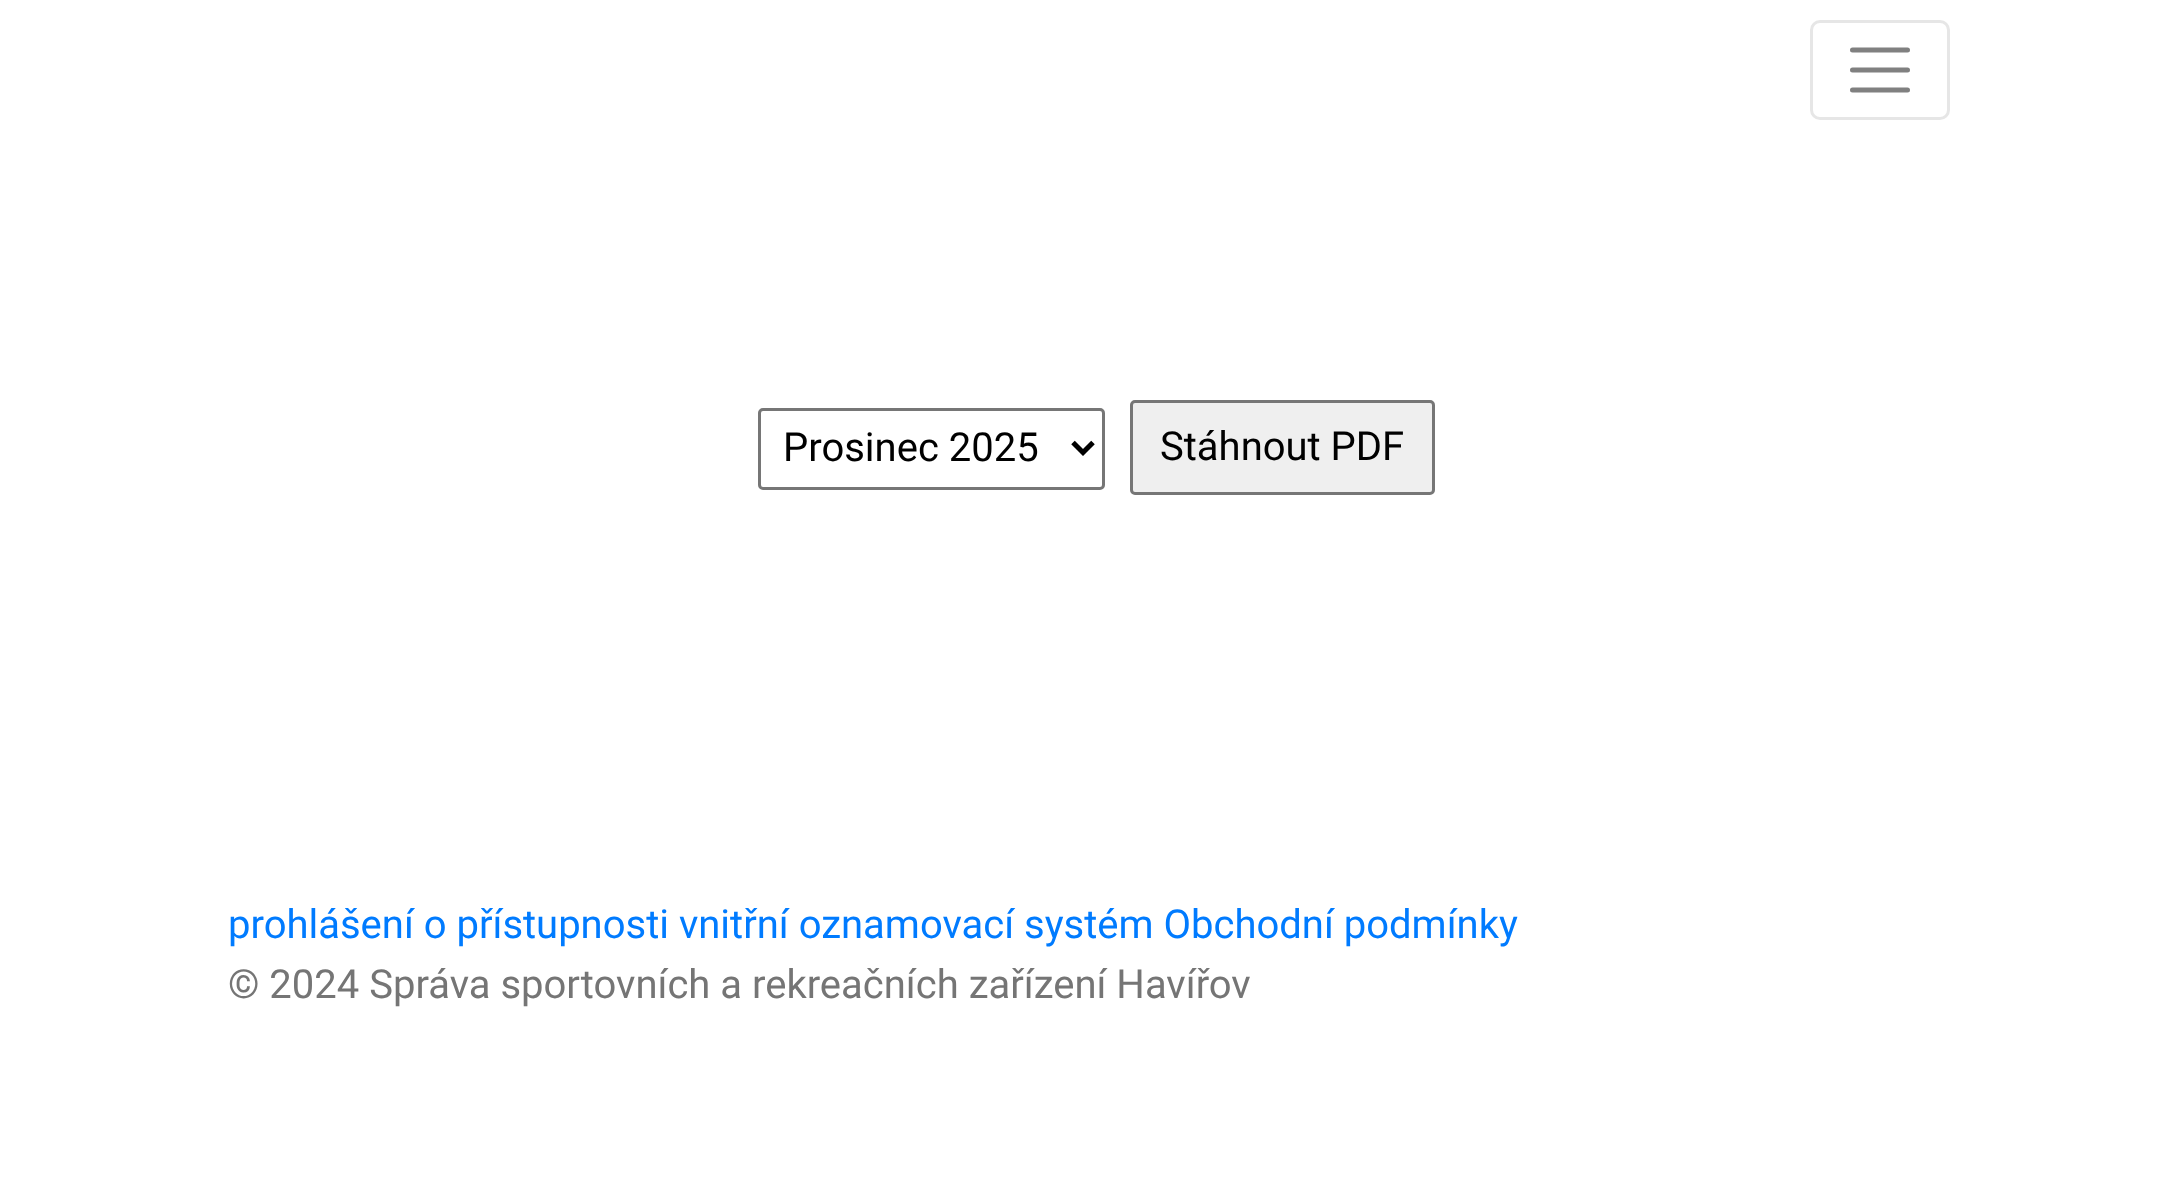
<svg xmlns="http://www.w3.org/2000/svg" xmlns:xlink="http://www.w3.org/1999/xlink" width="2180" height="1199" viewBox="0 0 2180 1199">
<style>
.cls-1{font:40px Roboto;fill:#000000}
.cls-2{font:40px Roboto;fill:#007bff}
.cls-3{font:40px Roboto;fill:#757575}
</style>
<rect width="100%" height="100%" fill="#ffffff"/>
<rect fill="none" stroke="#e6e6e6" stroke-width="3" x="1811.5" y="21.5" width="137" height="97" rx="8.5"/>
<path fill="none" stroke="#808080" stroke-width="5" stroke-linecap="round" d="M1852.5 50H1907.5M1852.5 70H1907.5M1852.5 90H1907.5"/>
<rect fill="none" stroke="#767676" stroke-width="3" x="759.5" y="409.5" width="344" height="79" rx="3.5"/>
<path fill="none" stroke="#000000" stroke-width="5" d="M1073 442.5L1083 452.5L1093 442.5"/>
<rect fill="#efefef" stroke="#767676" stroke-width="3" x="1131.5" y="401.5" width="302" height="92" rx="3.5"/>
<text class="cls-1" x="783" y="461">Prosinec 2025</text>
<text class="cls-1" x="1160" y="460">Stáhnout PDF</text>
<text class="cls-2" x="228" y="938">prohlášení o přístupnosti vnitřní oznamovací systém Obchodní podmínky</text>
<text class="cls-3" x="228" y="998">© 2024 Správa sportovních a rekreačních zařízení Havířov</text>
</svg>
